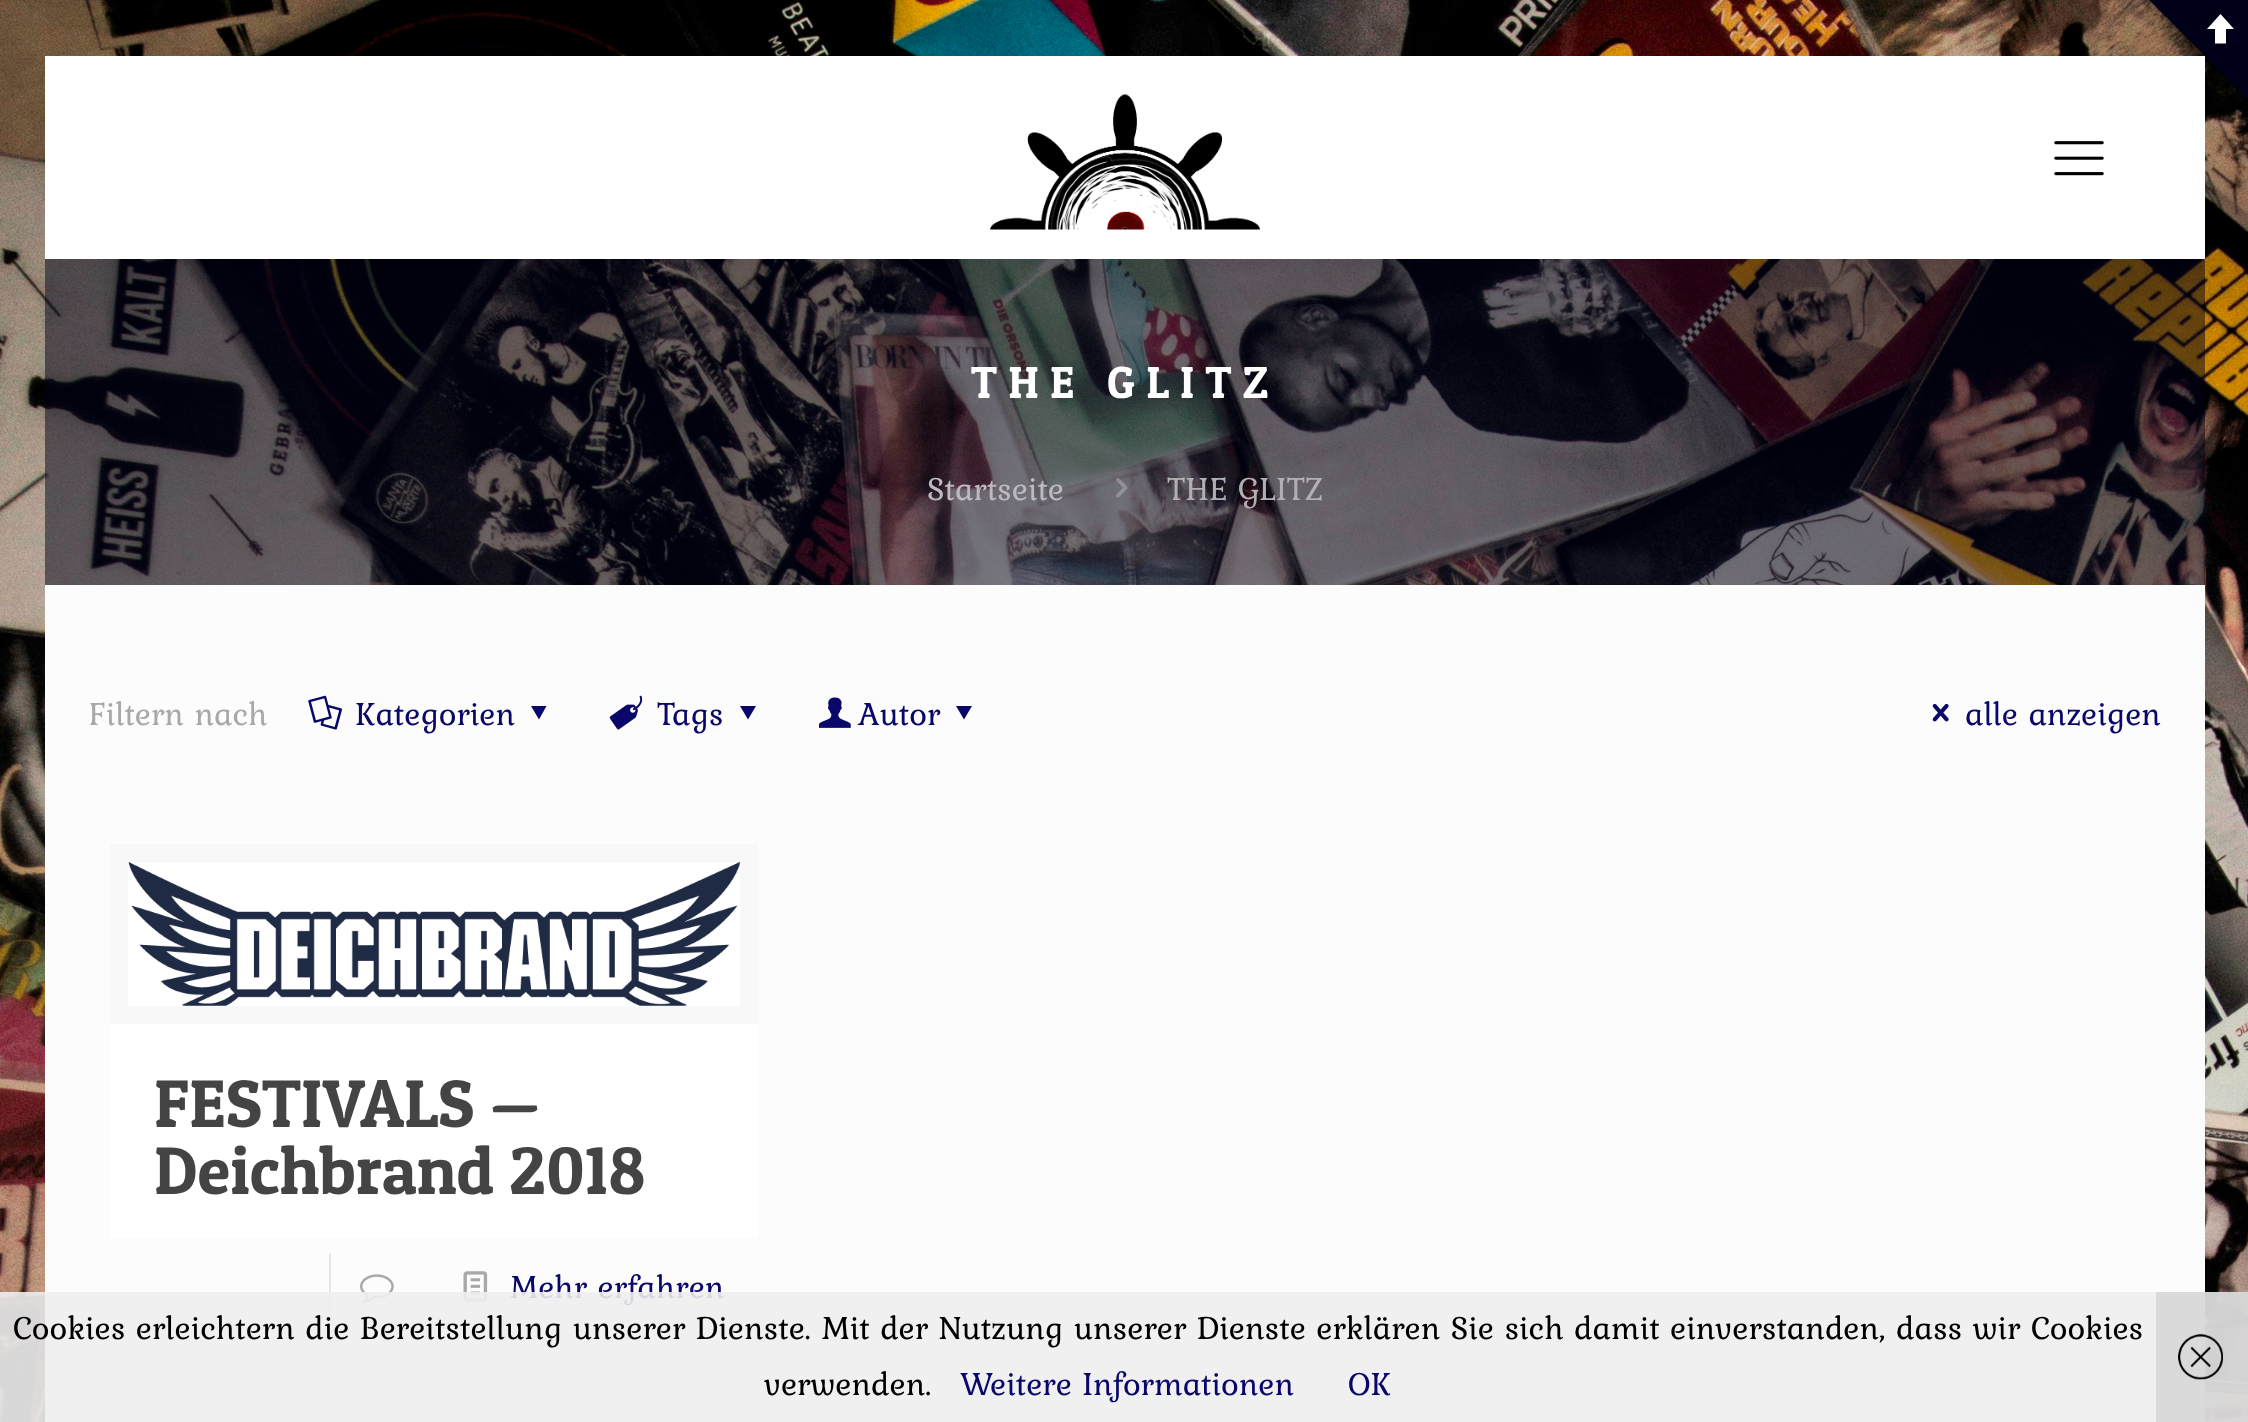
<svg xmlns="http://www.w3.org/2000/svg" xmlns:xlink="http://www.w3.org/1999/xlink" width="2248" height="1422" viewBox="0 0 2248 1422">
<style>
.cls-1{font:45px Patua One;letter-spacing:11.25px;fill:#ffffff}
.cls-2{font:33.75px Kurale;fill:#bdbabe}
.cls-3{font:33.75px Kurale;fill:#b2afb3}
.cls-4{font:33.75px Kurale;fill:#a8a8a8}
.cls-5{font:33.75px Kurale;fill:#0a076a}
.cls-6{font:67.5px Patua One;fill:#444444}
.cls-7{font:33.75px Kurale;fill:#000000}
</style>
<rect width="100%" height="100%" fill="#ffffff"/>
<image xlink:href="image0.png" x="0" y="0" width="2248" height="1422"/>
<rect fill="#ffffff" x="45" y="56" width="2160" height="203"/>
<path fill="#000119" d="M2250 0V101L2149 0Z"/>
<path fill="#ffffff" d="M2234 29H2226V43.5H2215V29H2207L2220.5 14Z"/>
<image xlink:href="image1.png" x="990" y="94" width="270" height="136"/>
<image xlink:href="image2.png" x="2054" y="141" width="50" height="35"/>
<rect fill="#000119" fill-opacity="0.5" x="45" y="259" width="2160" height="326"/>
<image xlink:href="image3.png" x="1116" y="478" width="12" height="20"/>
<rect fill="#fcfcfc" x="45" y="585" width="2160" height="837"/>
<image xlink:href="image4.png" x="308" y="695" width="34" height="35"/>
<path fill="#0a076a" d="M546.5 706L539 719.5L531 706Z"/>
<image xlink:href="image5.png" x="609" y="695" width="34" height="35"/>
<path fill="#0a076a" d="M756 706L748 719.5L740 706Z"/>
<image xlink:href="image6.png" x="819" y="697" width="32" height="31"/>
<path fill="#0a076a" d="M972 706L964 719.5L956 706Z"/>
<image xlink:href="image7.png" x="1932" y="703" width="17" height="19"/>
<rect fill="#ffffff" x="110" y="862" width="648" height="376"/>
<rect fill="none" stroke="#f8f8f8" stroke-width="18" x="119" y="853" width="630" height="162"/>
<image xlink:href="image8.png" x="128" y="861" width="613" height="145"/>
<rect fill="#e6e6e6" x="329" y="1253" width="2" height="68"/>
<image xlink:href="image9.png" x="360" y="1274" width="34" height="30"/>
<image xlink:href="image10.png" x="463" y="1271" width="25" height="31"/>
<text class="cls-1" x="971" y="398">THE GLITZ</text>
<text class="cls-2" x="927" y="500">Startseite</text>
<text class="cls-3" x="1167" y="500">THE GLITZ</text>
<text class="cls-4" x="89" y="725">Filtern nach</text>
<text class="cls-5" x="355" y="725">Kategorien</text>
<text class="cls-5" x="657" y="725">Tags</text>
<text class="cls-5" x="858" y="725">Autor</text>
<text class="cls-5" x="1965" y="725">alle anzeigen</text>
<text class="cls-6"><tspan x="154" y="1127">FESTIVALS —</tspan><tspan x="154" y="1194">Deichbrand 2018</tspan></text>
<text class="cls-5" x="510" y="1298">Mehr erfahren</text>
<rect fill="#eeeeee" fill-opacity="0.9" x="0" y="1292" width="2248" height="130"/>
<text class="cls-7" x="13" y="1339">Cookies erleichtern die Bereitstellung unserer Dienste. Mit der Nutzung unserer Dienste erklären Sie sich damit einverstanden, dass wir Cookies</text>
<text class="cls-7" x="764" y="1395">verwenden.</text>
<text class="cls-5" x="960" y="1395">Weitere Informationen</text>
<text class="cls-5" x="1348" y="1395">OK</text>
<rect fill="#cccccc" fill-opacity="0.6" x="2156" y="1292" width="92" height="130"/>
<image xlink:href="image11.png" x="2178" y="1333" width="45" height="47"/>
</svg>
